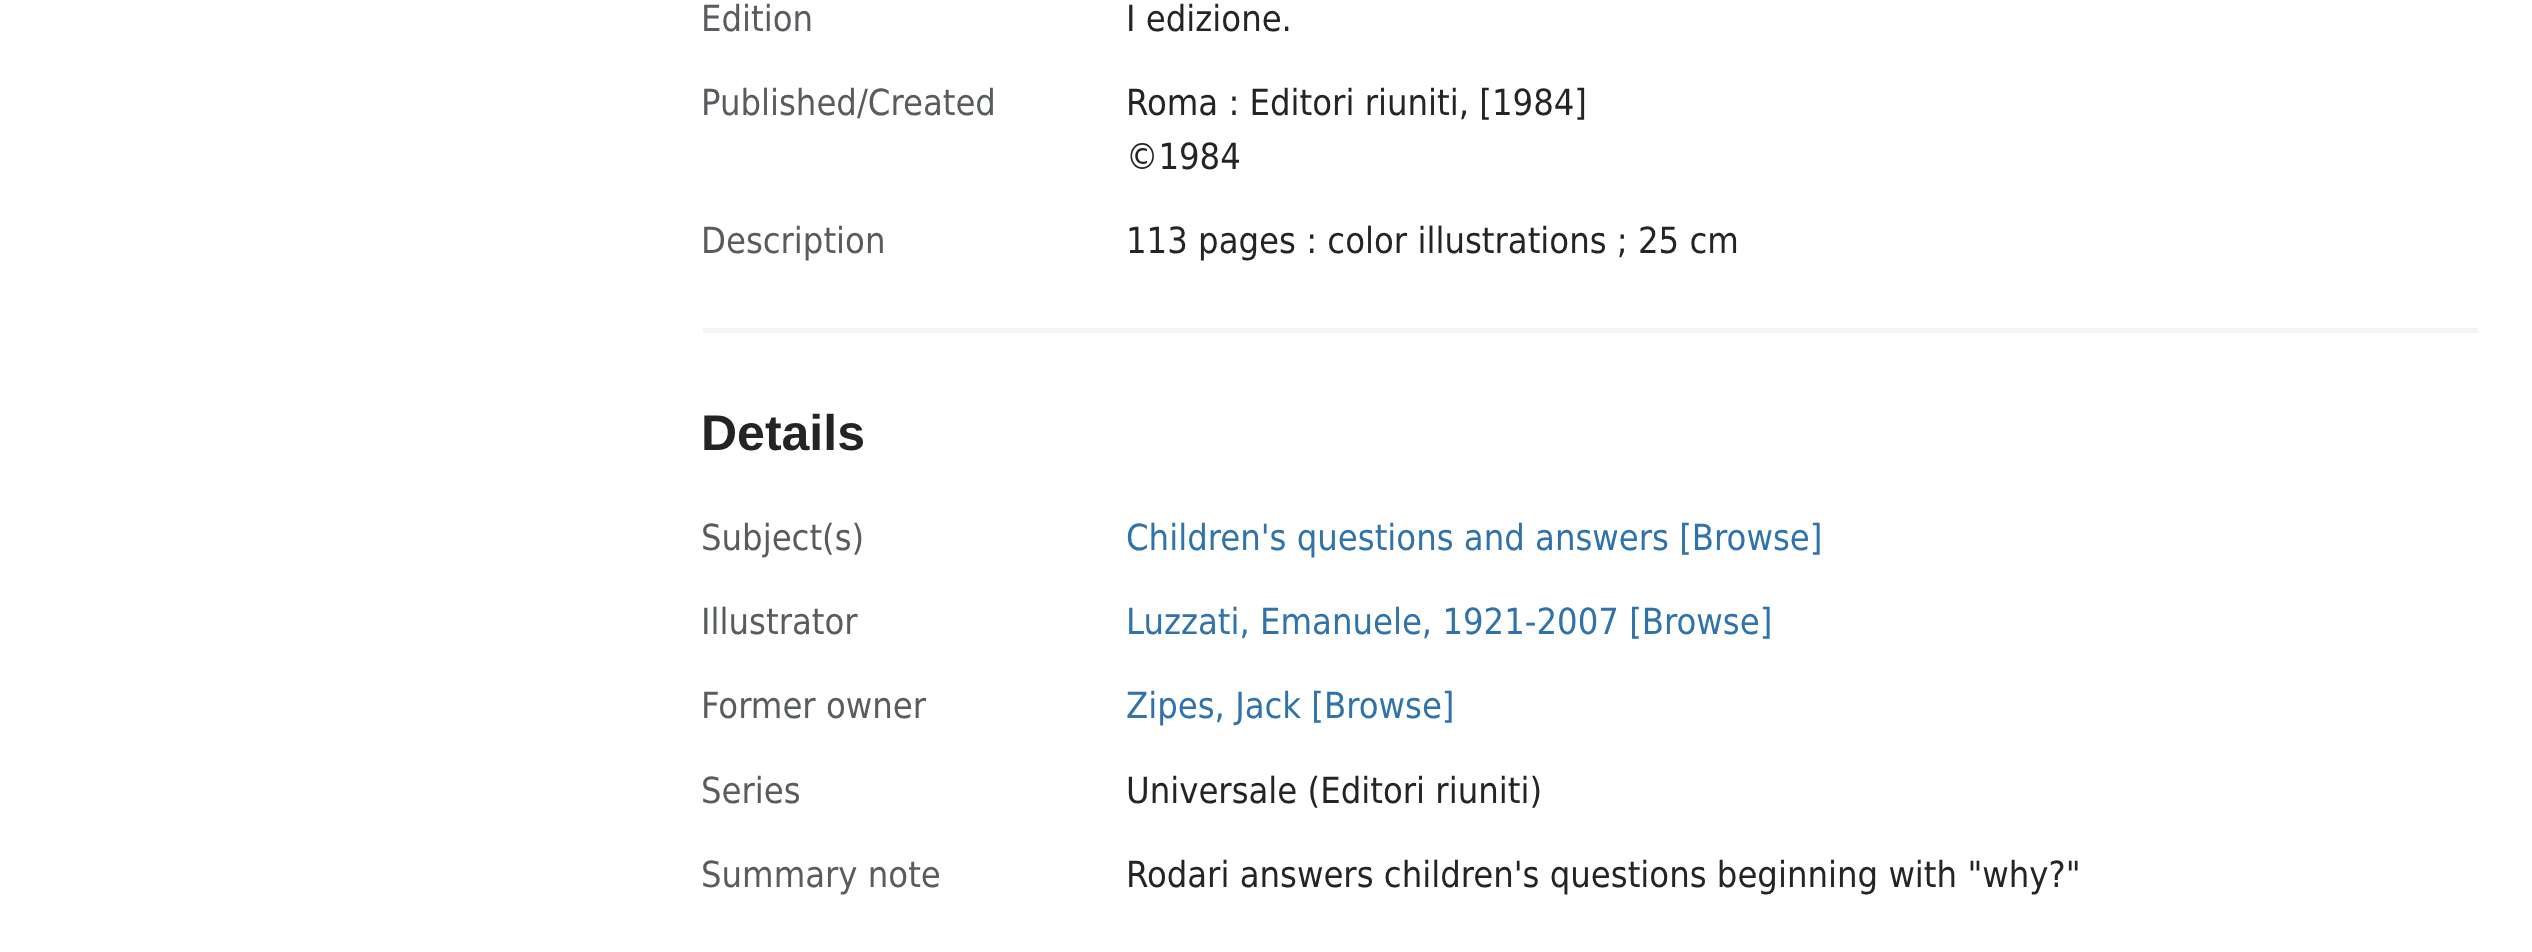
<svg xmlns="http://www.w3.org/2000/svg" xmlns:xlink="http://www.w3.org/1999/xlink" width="2532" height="952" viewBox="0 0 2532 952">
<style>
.cls-1{font:36px DejaVu Sans;fill:#595c5f}
.cls-2{font:36px DejaVu Sans;fill:#242424}
.cls-3{font:bold 50px Liberation Sans;fill:#242424}
.cls-4{font:36px DejaVu Sans;fill:#3072ab}
</style>
<rect width="100%" height="100%" fill="#ffffff"/>
<rect fill="#f5f5f5" x="703" y="328" width="1775" height="5"/>
<text class="cls-1" x="701" y="31">Εdition</text>
<text class="cls-2" x="1126" y="31">I edizione.</text>
<text class="cls-1" x="701" y="115">Published/Created</text>
<text class="cls-2"><tspan x="1126" y="115">Roma : Editori riuniti, [1984]</tspan><tspan x="1126" y="169">©1984</tspan></text>
<text class="cls-1" x="701" y="253">Description</text>
<text class="cls-2" x="1126" y="253">113 pages : color illustrations ; 25 cm</text>
<text class="cls-3" x="701" y="450">Details</text>
<text class="cls-1" x="701" y="550">Subject(s)</text>
<text class="cls-4" x="1126" y="550">Children's questions and answers [Browse]</text>
<text class="cls-1" x="701" y="634">Illustrator</text>
<text class="cls-4" x="1126" y="634">Luzzati, Emanuele, 1921-2007 [Browse]</text>
<text class="cls-1" x="701" y="718">Former owner</text>
<text class="cls-4" x="1126" y="718">Zipes, Jack [Browse]</text>
<text class="cls-1" x="701" y="803">Series</text>
<text class="cls-2" x="1126" y="803">Universale (Editori riuniti)</text>
<text class="cls-1" x="701" y="887">Summary note</text>
<text class="cls-2" x="1126" y="887">Rodari answers children's questions beginning with "why?"</text>
</svg>
